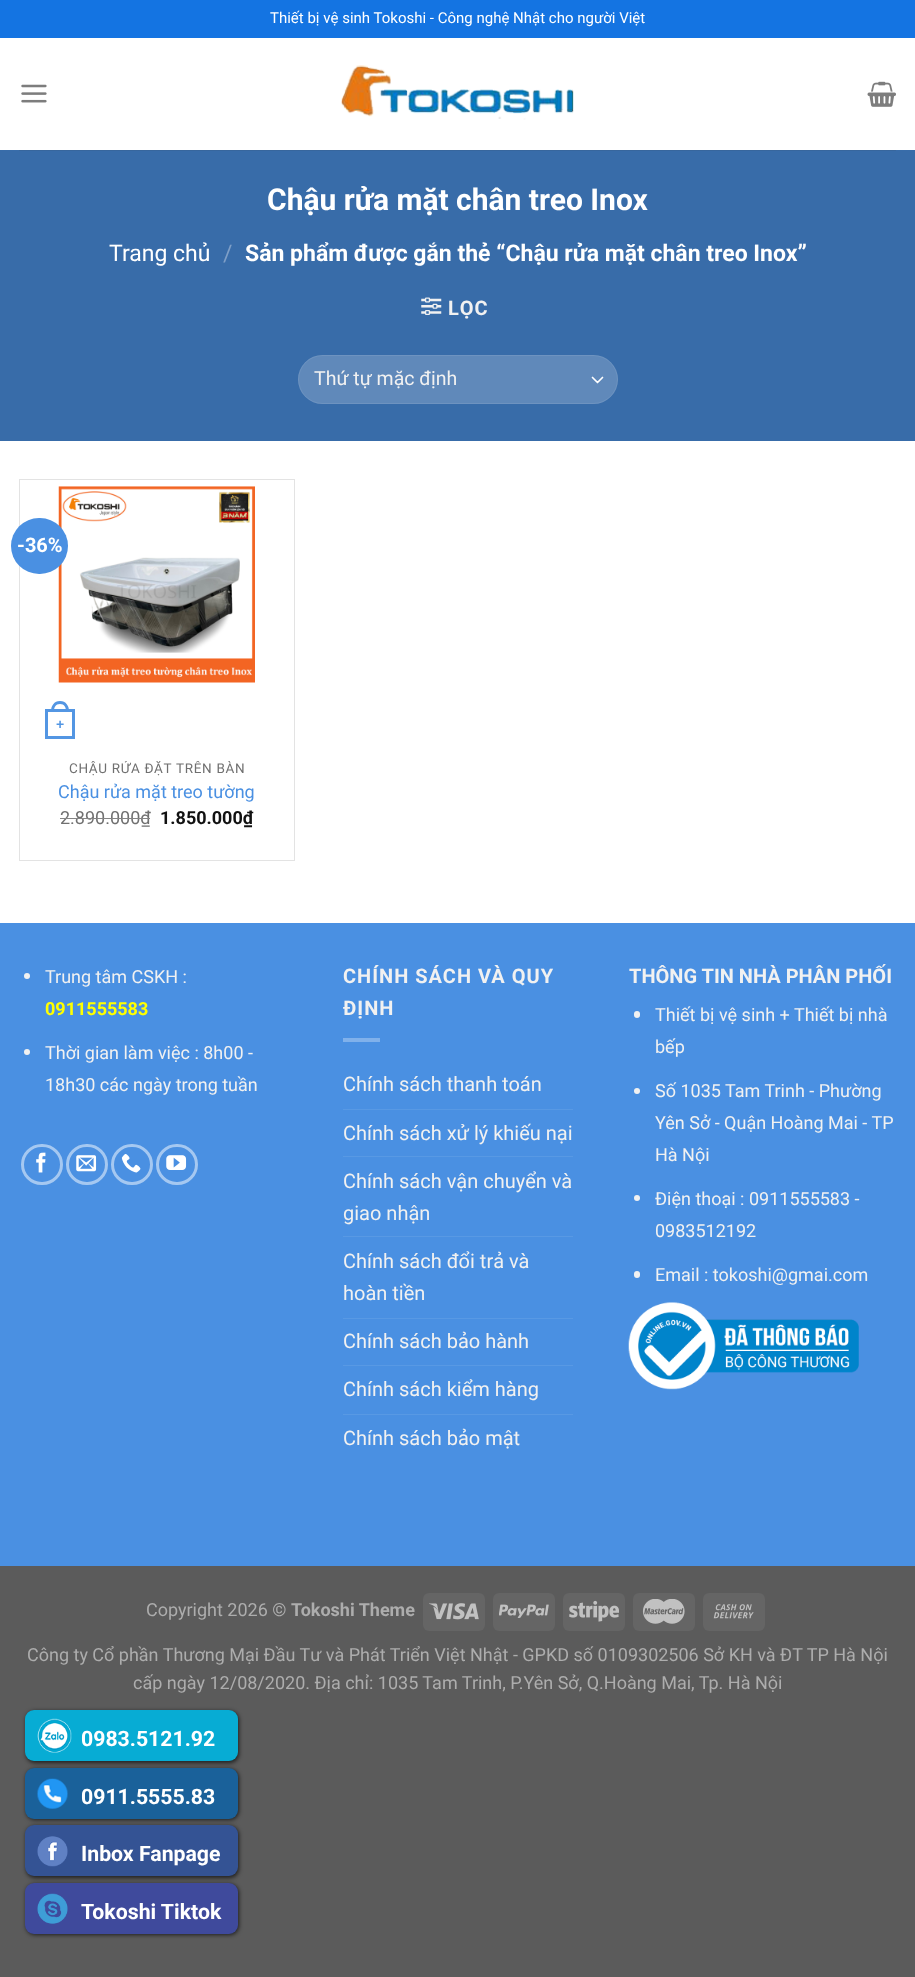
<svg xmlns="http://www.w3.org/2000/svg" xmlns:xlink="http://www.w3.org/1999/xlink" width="915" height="1977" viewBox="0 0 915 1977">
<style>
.cls-1{font:15px Roboto;fill:#ffffff}
.cls-2{font:bold 30px Roboto;fill:#ffffff}
.cls-3{font:23px Roboto;fill:#ffffff}
.cls-4{font:23px Roboto;fill:#7e9fc7}
.cls-5{font:bold 23px Roboto;fill:#ffffff}
.cls-6{font:bold 20px Roboto;letter-spacing:1px;fill:#f1f1f1}
.cls-7{font:19.5px Roboto;fill:#f1f1f1}
.cls-8{font:bold 20px Roboto;fill:#ffffff}
.cls-9{font:bold 14px Liberation Sans;fill:#5396e3}
.cls-10{font:13.5px Roboto;letter-spacing:0.7px;fill:#707070}
.cls-11{font:18px Roboto;fill:#4a90e2}
.cls-12{font:18px Roboto;fill:#707070}
.cls-13{font:bold 18px Roboto;fill:#111111}
.cls-14{font:18px Roboto;fill:#f1f1f1}
.cls-15{font:bold 18px Roboto;fill:#ffff00}
.cls-16{font:bold 21.25px Roboto;fill:#ffffff}
.cls-17{font:20px Roboto;fill:#f1f1f1}
.cls-18{font:bold 20px Roboto;fill:#f1f1f1}
.cls-19{font:18px Roboto;fill:#adadad}
.cls-20{font:bold 18px Roboto;fill:#adadad}
</style>
<defs>
<clipPath id="clip1"><rect x="39" y="761" width="236" height="17"/></clipPath>
</defs>
<rect width="100%" height="100%" fill="#5b5b5b"/>
<rect fill="#ffffff" x="0" y="38" width="915" height="885"/>
<rect fill="#1474e2" x="0" y="0" width="915" height="38"/>
<image xlink:href="image0.png" x="21" y="84" width="26" height="19"/>
<image xlink:href="image1.png" x="341" y="65" width="233" height="55"/>
<image xlink:href="image2.png" x="867" y="81" width="29" height="26"/>
<rect fill="#386ca9" x="0" y="150" width="915" height="291"/>
<rect fill="#37669d" x="19" y="150" width="877" height="1"/>
<image xlink:href="image3.png" x="421" y="297" width="21" height="18"/>
<rect fill="#6089ba" x="298" y="355" width="320" height="49" rx="24.5"/>
<path fill="none" stroke="#ffffff" stroke-width="1.7" stroke-linecap="round" stroke-linejoin="round" d="M592.5 377.5L597.5 382.5L602.5 377.5"/>
<rect fill="none" stroke="#ffffff" stroke-opacity="0.09" x="298.5" y="355.5" width="319" height="48" rx="24"/>
<rect fill="none" stroke="#e3e3e3" x="19.5" y="479.5" width="275" height="381"/>
<image xlink:href="image4.png" x="58" y="486" width="197" height="197"/>
<rect fill="#4a90e2" x="11" y="518" width="57" height="56" rx="28"/>
<rect fill="none" stroke="#5396e3" stroke-width="3" x="46.5" y="710.5" width="27" height="27"/>
<path fill="#5396e3" fill-rule="evenodd" d="M60 701C66 701 69 706 69 711H51C51 706 54 701 60 701ZM60 704C64.5 704 66 707.5 66 711H54C54 707.5 55.5 704 60 704Z"/>
<rect fill="#4a90e2" x="0" y="923" width="915" height="643"/>
<circle fill="#f1f1f1" cx="27" cy="976" r="3"/>
<circle fill="#f1f1f1" cx="27" cy="1052" r="3"/>
<rect fill="none" stroke="#a5c8f1" stroke-width="3" x="22.5" y="1145.5" width="39" height="38" rx="19"/>
<image xlink:href="image5.png" x="36" y="1152" width="10" height="21"/>
<rect fill="none" stroke="#a5c8f1" stroke-width="3" x="67.5" y="1145.5" width="39" height="38" rx="19"/>
<image xlink:href="image6.png" x="76" y="1155" width="21" height="17"/>
<rect fill="none" stroke="#a5c8f1" stroke-width="3" x="112.5" y="1145.5" width="39" height="38" rx="19"/>
<image xlink:href="image7.png" x="121" y="1154" width="20" height="19"/>
<rect fill="none" stroke="#a5c8f1" stroke-width="3" x="157.5" y="1145.5" width="39" height="38" rx="19"/>
<image xlink:href="image8.png" x="166" y="1155" width="21" height="15"/>
<rect fill="#000000" fill-opacity="0.66" filter="blur(2px)" x="26" y="1711" width="213" height="52" rx="9"/>
<rect fill="#07acd4" x="25" y="1710" width="213" height="51" rx="9"/>
<image xlink:href="image9.png" x="37" y="1718" width="35" height="35"/>
<rect fill="#000000" fill-opacity="0.66" filter="blur(2px)" x="26" y="1769" width="213" height="51" rx="9"/>
<rect fill="#1a619a" x="25" y="1768" width="213" height="51" rx="9"/>
<image xlink:href="image10.png" x="37" y="1778" width="31" height="31"/>
<rect fill="#000000" fill-opacity="0.66" filter="blur(2px)" x="26" y="1826" width="213" height="52" rx="9"/>
<rect fill="#345394" x="25" y="1825" width="213" height="51" rx="9"/>
<image xlink:href="image11.png" x="37" y="1836" width="31" height="31"/>
<rect fill="#000000" fill-opacity="0.66" filter="blur(2px)" x="26" y="1884" width="213" height="51" rx="9"/>
<rect fill="#3f4a9c" x="25" y="1883" width="213" height="51" rx="9"/>
<image xlink:href="image12.png" x="37" y="1893" width="31" height="31"/>
<rect fill="#80b1eb" x="343" y="1038" width="37" height="4"/>
<rect fill="#5899e4" x="343" y="1109" width="230" height="1"/>
<rect fill="#5899e4" x="343" y="1156" width="230" height="1"/>
<rect fill="#5899e4" x="343" y="1236" width="230" height="1"/>
<rect fill="#5899e4" x="343" y="1318" width="230" height="1"/>
<rect fill="#5899e4" x="343" y="1365" width="230" height="1"/>
<rect fill="#5899e4" x="343" y="1414" width="230" height="1"/>
<rect fill="#f1f1f1" x="634" y="1011" width="6" height="7" rx="3"/>
<circle fill="#f1f1f1" cx="637" cy="1091" r="3"/>
<circle fill="#f1f1f1" cx="637" cy="1198" r="3"/>
<rect fill="#f1f1f1" x="634" y="1271" width="6" height="7" rx="3"/>
<image xlink:href="image13.png" x="628" y="1302" width="231" height="88"/>
<rect fill="#656565" x="423" y="1593" width="62" height="38" rx="6"/>
<image xlink:href="image14.png" x="429" y="1603" width="50" height="17"/>
<rect fill="#656565" x="493" y="1593" width="62" height="38" rx="6"/>
<image xlink:href="image15.png" x="499" y="1604" width="50" height="14"/>
<rect fill="#656565" x="563" y="1593" width="62" height="38" rx="6"/>
<image xlink:href="image16.png" x="569" y="1600" width="50" height="22"/>
<rect fill="#656565" x="633" y="1593" width="62" height="38" rx="6"/>
<image xlink:href="image17.png" x="642" y="1599" width="43" height="25"/>
<rect fill="#656565" x="703" y="1593" width="62" height="38" rx="6"/>
<image xlink:href="image18.png" x="713" y="1604" width="41" height="15"/>
<text class="cls-1" x="270" y="23">Thiết bị vệ sinh Tokoshi - Công nghệ Nhật cho người Việt</text>
<text class="cls-2" x="267" y="210">Chậu rửa mặt chân treo Inox</text>
<text class="cls-3" x="109" y="261">Trang chủ</text>
<text class="cls-4" x="223" y="261">/</text>
<text class="cls-5" x="245" y="261">Sản phẩm được gắn thẻ “Chậu rửa mặt chân treo Inox”</text>
<text class="cls-6" x="448" y="315">LỌC</text>
<text class="cls-7" x="314" y="385">Thứ tự mặc định</text>
<text class="cls-8" x="17" y="552">-36%</text>
<text class="cls-9" x="56" y="729">+</text>
<g clip-path="url(#clip1)">
<text class="cls-10" x="69" y="773">CHẬU RỬA ĐẶT TRÊN BÀN</text>
</g>
<text class="cls-11" x="58" y="798">Chậu rửa mặt treo tường</text>
<text class="cls-12" x="60" y="824">2.890.000₫</text>
<rect fill="#858585" x="60" y="818" width="90" height="1"/>
<text class="cls-13" x="160" y="824">1.850.000₫</text>
<text class="cls-14" x="45" y="983">Trung tâm CSKH :</text>
<text class="cls-15" x="45" y="1015">0911555583</text>
<text class="cls-14"><tspan x="45" y="1059">Thời gian làm việc : 8h00 -</tspan><tspan x="45" y="1091">18h30 các ngày trong tuần</tspan></text>
<text class="cls-16" x="81" y="1746">0983.5121.92</text>
<text class="cls-16" x="81" y="1804">0911.5555.83</text>
<text class="cls-16" x="81" y="1861">Inbox Fanpage</text>
<text class="cls-16" x="81" y="1919">Tokoshi Tiktok</text>
<text class="cls-6"><tspan x="343" y="983">CHÍNH SÁCH VÀ QUY</tspan><tspan x="343" y="1015">ĐỊNH</tspan></text>
<text class="cls-17" x="343" y="1091">Chính sách thanh toán</text>
<text class="cls-17" x="343" y="1140">Chính sách xử lý khiếu nại</text>
<text class="cls-17"><tspan x="343" y="1188">Chính sách vận chuyển và</tspan><tspan x="343" y="1220">giao nhận</tspan></text>
<text class="cls-17"><tspan x="343" y="1268">Chính sách đổi trả và</tspan><tspan x="343" y="1300">hoàn tiền</tspan></text>
<text class="cls-17" x="343" y="1348">Chính sách bảo hành</text>
<text class="cls-17" x="343" y="1396">Chính sách kiểm hàng</text>
<text class="cls-17" x="343" y="1445">Chính sách bảo mật</text>
<text class="cls-18" x="629" y="983">THÔNG TIN NHÀ PHÂN PHỐI</text>
<text class="cls-14"><tspan x="655" y="1021">Thiết bị vệ sinh + Thiết bị nhà</tspan><tspan x="655" y="1053">bếp</tspan></text>
<text class="cls-14"><tspan x="655" y="1097">Số 1035 Tam Trinh - Phường</tspan><tspan x="655" y="1129">Yên Sở - Quận Hoàng Mai - TP</tspan><tspan x="655" y="1161">Hà Nội</tspan></text>
<text class="cls-14"><tspan x="655" y="1205">Điện thoại : 0911555583 -</tspan><tspan x="655" y="1237">0983512192</tspan></text>
<text class="cls-14" x="655" y="1281">Email : tokoshi@gmai.com</text>
<text class="cls-19" x="146" y="1616">Copyright 2026 ©</text>
<text class="cls-20" x="291" y="1616">Tokoshi Theme</text>
<text class="cls-19" x="27" y="1661">Công ty Cổ phần Thương Mại Đầu Tư và Phát Triển Việt Nhật - GPKD số 0109302506 Sở KH và ĐT TP Hà Nội</text>
<text class="cls-19" x="133" y="1689">cấp ngày 12/08/2020. Địa chỉ: 1035 Tam Trinh, P.Yên Sở, Q.Hoàng Mai, Tp. Hà Nội</text>
</svg>
